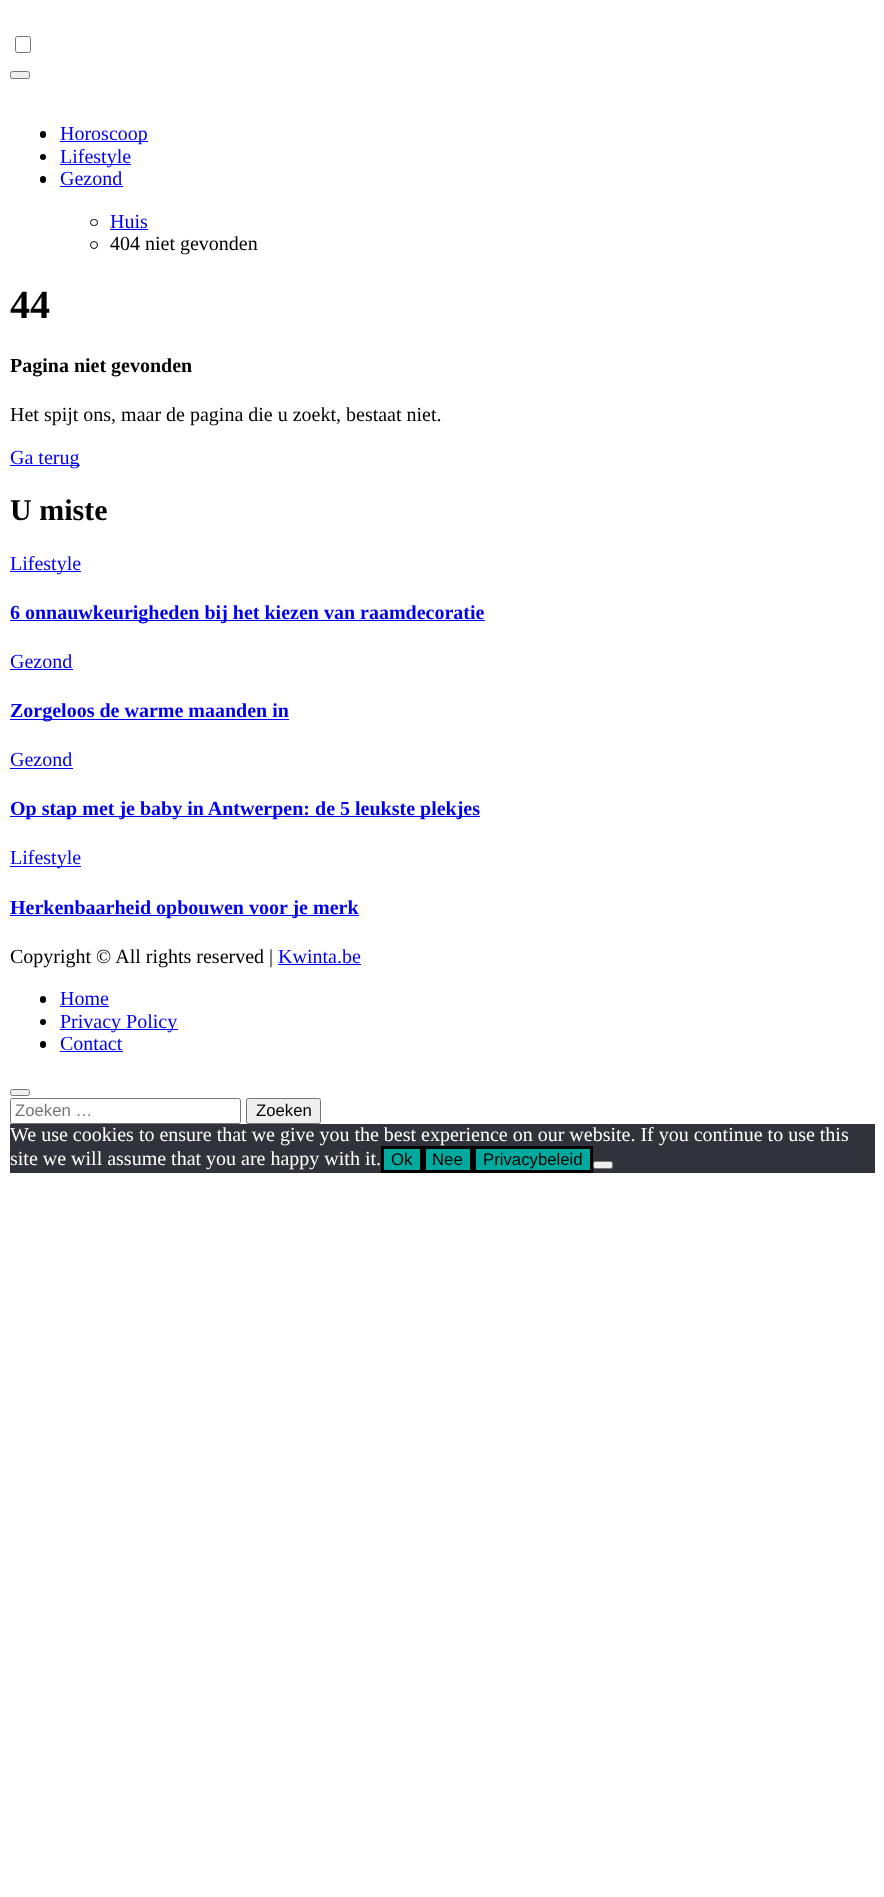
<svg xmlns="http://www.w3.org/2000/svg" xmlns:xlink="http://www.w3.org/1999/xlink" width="884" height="1897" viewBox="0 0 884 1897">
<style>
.cls-1{font:20px Liberation Serif;fill:#0000ee}
.cls-2{font:20px Liberation Serif;fill:#000000}
.cls-3{font:bold 40px Liberation Serif;fill:#000000}
.cls-4{font:bold 20px Liberation Serif;fill:#000000}
.cls-5{font:bold 30px Liberation Serif;fill:#000000}
.cls-6{font:bold 20px Liberation Serif;fill:#0000ee}
.cls-7{font:16.75px Liberation Sans;fill:#757575}
.cls-8{font:16.75px Liberation Sans;fill:#000000}
.cls-9{font:20px Liberation Serif;fill:#ffffff}
</style>
<rect width="100%" height="100%" fill="#ffffff"/>
<rect fill="none" stroke="#767676" x="15.5" y="36.5" width="15" height="16" rx="2"/>
<rect fill="#efefef" stroke="#767676" x="10.5" y="71.5" width="19" height="7" rx="2"/>
<rect fill="#000000" x="40" y="131" width="6" height="7" rx="3"/>
<rect fill="#0000ee" x="60" y="141" width="88" height="1"/>
<circle fill="#000000" cx="43" cy="157" r="3"/>
<rect fill="#0000ee" x="60" y="164" width="71" height="1"/>
<rect fill="#000000" x="40" y="176" width="6" height="7" rx="3"/>
<rect fill="#0000ee" x="60" y="186" width="63" height="1"/>
<rect fill="none" stroke="#000000" x="90.5" y="219.5" width="7" height="6" rx="3"/>
<rect fill="#0000ee" x="110" y="229" width="38" height="1"/>
<circle fill="none" stroke="#000000" cx="94" cy="245" r="3.5"/>
<rect fill="#0000ee" x="10" y="465" width="70" height="1"/>
<rect fill="#0000ee" x="10" y="571" width="71" height="1"/>
<rect fill="#0000ee" x="10" y="620" width="475" height="1"/>
<rect fill="#0000ee" x="10" y="669" width="63" height="1"/>
<rect fill="#0000ee" x="10" y="719" width="279" height="1"/>
<rect fill="#0000ee" x="10" y="768" width="63" height="1"/>
<rect fill="#0000ee" x="10" y="816" width="470" height="1"/>
<rect fill="#0000ee" x="10" y="866" width="71" height="1"/>
<rect fill="#0000ee" x="10" y="915" width="349" height="1"/>
<rect fill="#0000ee" x="278" y="964" width="83" height="1"/>
<rect fill="#000000" x="40" y="996" width="6" height="7" rx="3"/>
<rect fill="#0000ee" x="60" y="1006" width="49" height="1"/>
<circle fill="#000000" cx="43" cy="1022" r="3"/>
<rect fill="#0000ee" x="60" y="1029" width="118" height="1"/>
<rect fill="#000000" x="40" y="1041" width="6" height="7" rx="3"/>
<rect fill="#0000ee" x="60" y="1051" width="63" height="1"/>
<rect fill="#efefef" stroke="#767676" x="10.5" y="1089.5" width="19" height="6" rx="2"/>
<rect fill="none" stroke="#767676" x="10.5" y="1098.5" width="230" height="25" rx="2"/>
<rect fill="#efefef" stroke="#767676" x="246.5" y="1098.5" width="74" height="25" rx="2"/>
<rect fill="#32323a" x="10" y="1124" width="865" height="49"/>
<rect fill="#00a99d" stroke="#000000" stroke-width="3" x="382.5" y="1147.5" width="39" height="24"/>
<rect fill="#00a99d" stroke="#000000" stroke-width="3" x="424.5" y="1147.5" width="47" height="24"/>
<rect fill="#00a99d" stroke="#000000" stroke-width="3" x="474.5" y="1147.5" width="117" height="24"/>
<rect fill="#efefef" stroke="#767676" x="593.5" y="1161.5" width="19" height="7" rx="2"/>
<text class="cls-1"><tspan x="60" y="140">Horoscoop</tspan><tspan x="60" y="163">Lifestyle</tspan><tspan x="60" y="185">Gezond</tspan></text>
<text class="cls-1" x="110" y="228">Huis</text>
<text class="cls-2" x="110" y="250">404 niet gevonden</text>
<text class="cls-3" x="10" y="318">44</text>
<text class="cls-4" x="10" y="372">Pagina niet gevonden</text>
<text class="cls-2" x="10" y="421">Het spijt ons, maar de pagina die u zoekt, bestaat niet.</text>
<text class="cls-1" x="10" y="464">Ga terug</text>
<text class="cls-5" x="10" y="520">U miste</text>
<text class="cls-1" x="10" y="570">Lifestyle</text>
<text class="cls-6" x="10" y="619">6 onnauwkeurigheden bij het kiezen van raamdecoratie</text>
<text class="cls-1" x="10" y="668">Gezond</text>
<text class="cls-6" x="10" y="717">Zorgeloos de warme maanden in</text>
<text class="cls-1" x="10" y="766">Gezond</text>
<text class="cls-6" x="10" y="815">Op stap met je baby in Antwerpen: de 5 leukste plekjes</text>
<text class="cls-1" x="10" y="864">Lifestyle</text>
<text class="cls-6" x="10" y="914">Herkenbaarheid opbouwen voor je merk</text>
<text class="cls-2" x="10" y="963">Copyright © All rights reserved |</text>
<text class="cls-1" x="278" y="963">Kwinta.be</text>
<text class="cls-1"><tspan x="60" y="1005">Home</tspan><tspan x="60" y="1028">Privacy Policy</tspan><tspan x="60" y="1050">Contact</tspan></text>
<text class="cls-7" x="15" y="1116">Zoeken …</text>
<text class="cls-8" x="256" y="1116">Zoeken</text>
<text class="cls-9"><tspan x="10" y="1141">We use cookies to ensure that we give you the best experience on our website. If you continue to use this</tspan><tspan x="10" y="1165">site we will assume that you are happy with it.</tspan></text>
<text class="cls-8" x="391" y="1165">Ok</text>
<text class="cls-8" x="432" y="1165">Nee</text>
<text class="cls-8" x="483" y="1165">Privacybeleid</text>
</svg>
